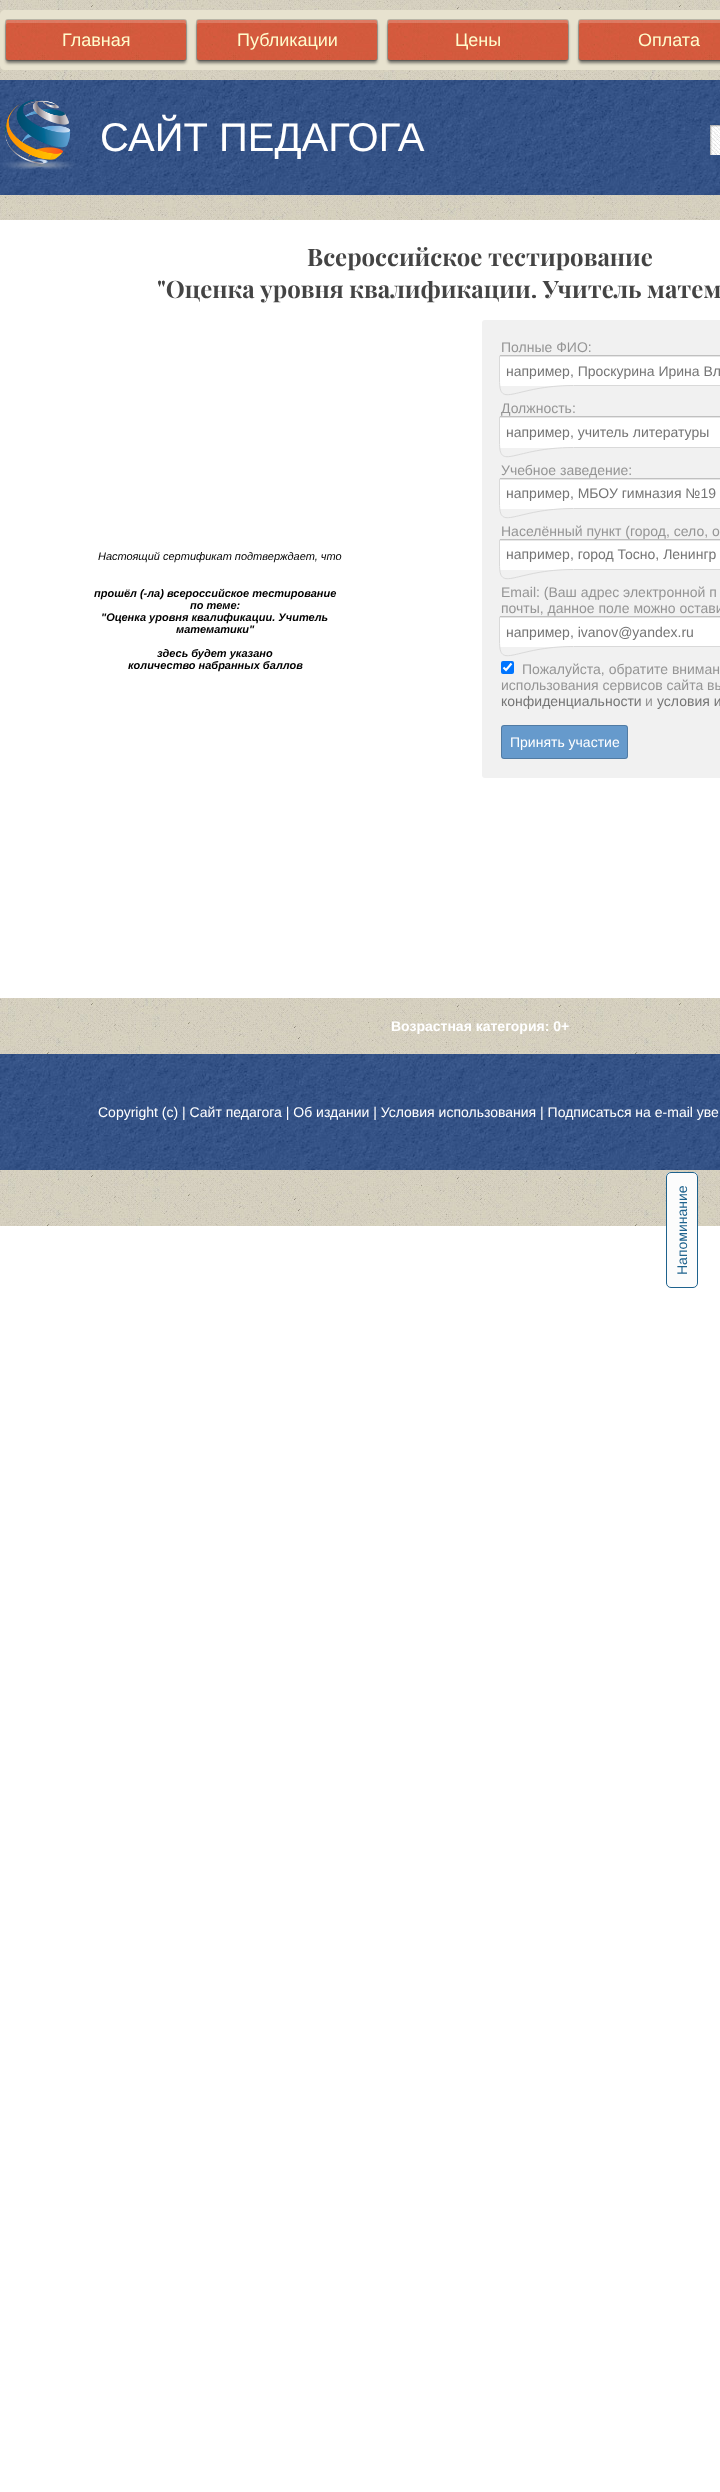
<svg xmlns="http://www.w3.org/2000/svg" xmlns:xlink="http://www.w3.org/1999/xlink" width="720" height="2492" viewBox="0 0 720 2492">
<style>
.cls-1{font:18px Liberation Sans;fill:#fffccc}
.cls-2{font:40px Liberation Sans;fill:#ffffff}
.cls-3{font:bold 24px Playfair Display;fill:#444444}
.cls-4{font:italic 11px Liberation Sans;fill:#000000}
.cls-5{font:italic bold 11px Liberation Sans;fill:#000000}
.cls-6{font:14px Liberation Sans;fill:#959595}
.cls-7{font:14px Liberation Sans;fill:#757575}
.cls-8{font:14px Liberation Sans;fill:#ffffff}
.cls-9{font:bold 14px Liberation Sans;fill:#ffffff}
.cls-10{font:14px Liberation Sans;fill:#1e628d}
</style>
<rect width="100%" height="100%" fill="#ffffff"/>
<image xlink:href="image0.png" x="0" y="0" width="720" height="220"/>
<path fill="#e7e2cf" d="M5 10H720V70H5C2 70 0 68 0 65V15C0 12 2 10 5 10Z"/>
<rect fill="#000106" fill-opacity="0.2" filter="blur(0.5px)" x="5" y="19" width="182" height="42" rx="3"/>
<rect fill="#000106" fill-opacity="0.5" filter="blur(1.5px)" x="6" y="23" width="180" height="40" rx="2"/>
<image xlink:href="image1.png" x="6" y="20" width="180" height="40"/>
<path fill="#ffffff" fill-opacity="0.2" d="M8 23H184C185 23 186 24 186 25V22C186 21 185 20 184 20H8C7 20 6 21 6 22V25C6 24 7 23 8 23Z"/>
<rect fill="#000106" fill-opacity="0.2" filter="blur(0.5px)" x="196" y="19" width="182" height="42" rx="3"/>
<rect fill="#000106" fill-opacity="0.5" filter="blur(1.5px)" x="197" y="23" width="180" height="40" rx="2"/>
<image xlink:href="image1.png" x="197" y="20" width="180" height="40"/>
<path fill="#ffffff" fill-opacity="0.2" d="M199 23H375C376 23 377 24 377 25V22C377 21 376 20 375 20H199C198 20 197 21 197 22V25C197 24 198 23 199 23Z"/>
<rect fill="#000106" fill-opacity="0.2" filter="blur(0.5px)" x="387" y="19" width="182" height="42" rx="3"/>
<rect fill="#000106" fill-opacity="0.5" filter="blur(1.5px)" x="388" y="23" width="180" height="40" rx="2"/>
<image xlink:href="image1.png" x="388" y="20" width="180" height="40"/>
<path fill="#ffffff" fill-opacity="0.2" d="M390 23H566C567 23 568 24 568 25V22C568 21 567 20 566 20H390C389 20 388 21 388 22V25C388 24 389 23 390 23Z"/>
<rect fill="#000106" fill-opacity="0.2" filter="blur(0.5px)" x="578" y="19" width="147" height="42" rx="3"/>
<rect fill="#000106" fill-opacity="0.5" filter="blur(1.5px)" x="579" y="23" width="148" height="40" rx="2"/>
<image xlink:href="image2.png" x="579" y="20" width="141" height="40"/>
<path fill="#ffffff" fill-opacity="0.2" d="M581 23H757C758 23 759 24 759 25V22C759 21 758 20 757 20H581C580 20 579 21 579 22V25C579 24 580 23 581 23Z"/>
<image xlink:href="image3.png" x="0" y="80" width="720" height="115"/>
<image xlink:href="image4.png" x="3" y="99" width="73" height="71"/>
<image xlink:href="image5.png" x="710" y="125" width="10" height="30"/>
<rect fill="#f1f1f1" x="482" y="320" width="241" height="458" rx="3"/>
<rect fill="#ffffff" x="499" y="355" width="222" height="31" rx="1"/>
<rect fill="#e6e6e6" x="500" y="356" width="220" height="1"/>
<rect fill="#c0c0c0" x="500" y="355" width="220" height="1"/>
<path fill="none" stroke="#d9d9d9" d="M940.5 355.5V380C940.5 409.5 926 385.5 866.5 385.5H573.5C514 385.5 499.5 409.5 499.5 380V355.5"/>
<rect fill="#ffffff" x="499" y="416" width="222" height="32" rx="1"/>
<rect fill="#e6e6e6" x="500" y="417" width="220" height="1"/>
<rect fill="#c0c0c0" x="500" y="416" width="220" height="1"/>
<path fill="none" stroke="#d9d9d9" d="M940.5 416.5V442C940.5 471.5 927 447.5 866.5 447.5H573.5C513 447.5 499.5 471.5 499.5 442V416.5"/>
<rect fill="#ffffff" x="499" y="478" width="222" height="31" rx="1"/>
<rect fill="#e6e6e6" x="500" y="479" width="220" height="1"/>
<rect fill="#c0c0c0" x="500" y="478" width="220" height="1"/>
<path fill="none" stroke="#d9d9d9" d="M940.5 478.5V503C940.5 532.5 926 508.5 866.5 508.5H573.5C514 508.5 499.5 532.5 499.5 503V478.5"/>
<rect fill="#ffffff" x="499" y="539" width="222" height="31" rx="1"/>
<rect fill="#e6e6e6" x="500" y="540" width="220" height="1"/>
<rect fill="#c0c0c0" x="500" y="539" width="220" height="1"/>
<path fill="none" stroke="#d9d9d9" d="M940.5 539.5V564C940.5 593.5 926 569.5 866.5 569.5H573.5C514 569.5 499.5 593.5 499.5 564V539.5"/>
<rect fill="#ffffff" x="499" y="616" width="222" height="31" rx="1"/>
<rect fill="#e6e6e6" x="500" y="617" width="220" height="1"/>
<rect fill="#c0c0c0" x="500" y="616" width="220" height="1"/>
<path fill="none" stroke="#d9d9d9" d="M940.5 616.5V641C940.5 670.5 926 646.5 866.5 646.5H573.5C514 646.5 499.5 670.5 499.5 641V616.5"/>
<rect fill="#0075ff" x="501" y="661" width="13" height="13" rx="2"/>
<path fill="none" stroke="#ffffff" stroke-width="2.1" d="M503.5 667.5L506 670L511.5 663.5"/>
<rect fill="#669acc" x="501" y="725" width="127" height="34" rx="3"/>
<rect fill="none" stroke="#000000" stroke-opacity="0.2" x="501.5" y="725.5" width="126" height="33" rx="2.5"/>
<image xlink:href="image6.png" x="0" y="998" width="720" height="56"/>
<image xlink:href="image7.png" x="0" y="1054" width="720" height="116"/>
<image xlink:href="image6.png" x="0" y="1170" width="720" height="56"/>
<path fill="#fcfcfc" d="M666 1283V1177C666 1174 668 1172 671 1172H693C696 1172 698 1174 698 1177V1283C698 1286 696 1288 693 1288H671C668 1288 666 1286 666 1283Z"/>
<path fill="none" stroke="#1e628d" d="M666.5 1283V1177C666.5 1174.5 668.5 1172.5 671 1172.5H693C695.5 1172.5 697.5 1174.5 697.5 1177V1283C697.5 1285.5 695.5 1287.5 693 1287.5H671C668.5 1287.5 666.5 1285.5 666.5 1283Z"/>
<text class="cls-1" x="62" y="46">Главная</text>
<text class="cls-1" x="237" y="46">Публикации</text>
<text class="cls-1" x="455" y="46">Цены</text>
<text class="cls-1" x="638" y="46">Оплата</text>
<text class="cls-2" x="100" y="151">САЙТ ПЕДАГОГА</text>
<text class="cls-3" x="307" y="266">Всероссийское тестирование</text>
<text class="cls-3" x="157" y="298">"Оценка уровня квалификации. Учитель матем</text>
<text class="cls-4" x="98" y="560">Настоящий сертификат подтверждает, что</text>
<text class="cls-5" x="94" y="597">прошёл (-ла) всероссийское тестирование</text>
<text class="cls-5" x="190" y="609">по теме:</text>
<text class="cls-5" x="101" y="621">"Оценка уровня квалификации. Учитель</text>
<text class="cls-5" x="176" y="633">математики"</text>
<text class="cls-5" x="157" y="657">здесь будет указано</text>
<text class="cls-5" x="128" y="669">количество набранных баллов</text>
<text class="cls-6" x="501" y="352">Полные ФИО:</text>
<text class="cls-7" x="506" y="376">например, Проскурина Ирина Вл</text>
<text class="cls-6" x="501" y="413">Должность:</text>
<text class="cls-7" x="506" y="437">например, учитель литературы</text>
<text class="cls-6" x="501" y="475">Учебное заведение:</text>
<text class="cls-7" x="506" y="498">например, МБОУ гимназия №19</text>
<text class="cls-6" x="501" y="536">Населённый пункт (город, село, о</text>
<text class="cls-7" x="506" y="559">например, город Тосно, Ленингр</text>
<text class="cls-6"><tspan x="501" y="597">Email: (Ваш адрес электронной п</tspan><tspan x="501" y="613">почты, данное поле можно остави</tspan></text>
<text class="cls-7" x="506" y="637">например, ivanov@yandex.ru</text>
<text class="cls-6" x="522" y="674">Пожалуйста, обратите вниман</text>
<text class="cls-6" x="501" y="690">использования сервисов сайта вы</text>
<text class="cls-7" x="501" y="706">конфиденциальности</text>
<text class="cls-6" x="645" y="706">и</text>
<text class="cls-7" x="657" y="706">условия и</text>
<text class="cls-8" x="510" y="747">Принять участие</text>
<text class="cls-9" x="391" y="1031">Возрастная категория: 0+</text>
<text class="cls-8" x="98" y="1117">Copyright (c) | Сайт педагога | Об издании | Условия использования | Подписаться на e-mail уве</text>
<text class="cls-10" x="687" y="1275" transform="rotate(-90 687 1275)">Напоминание</text>
</svg>
